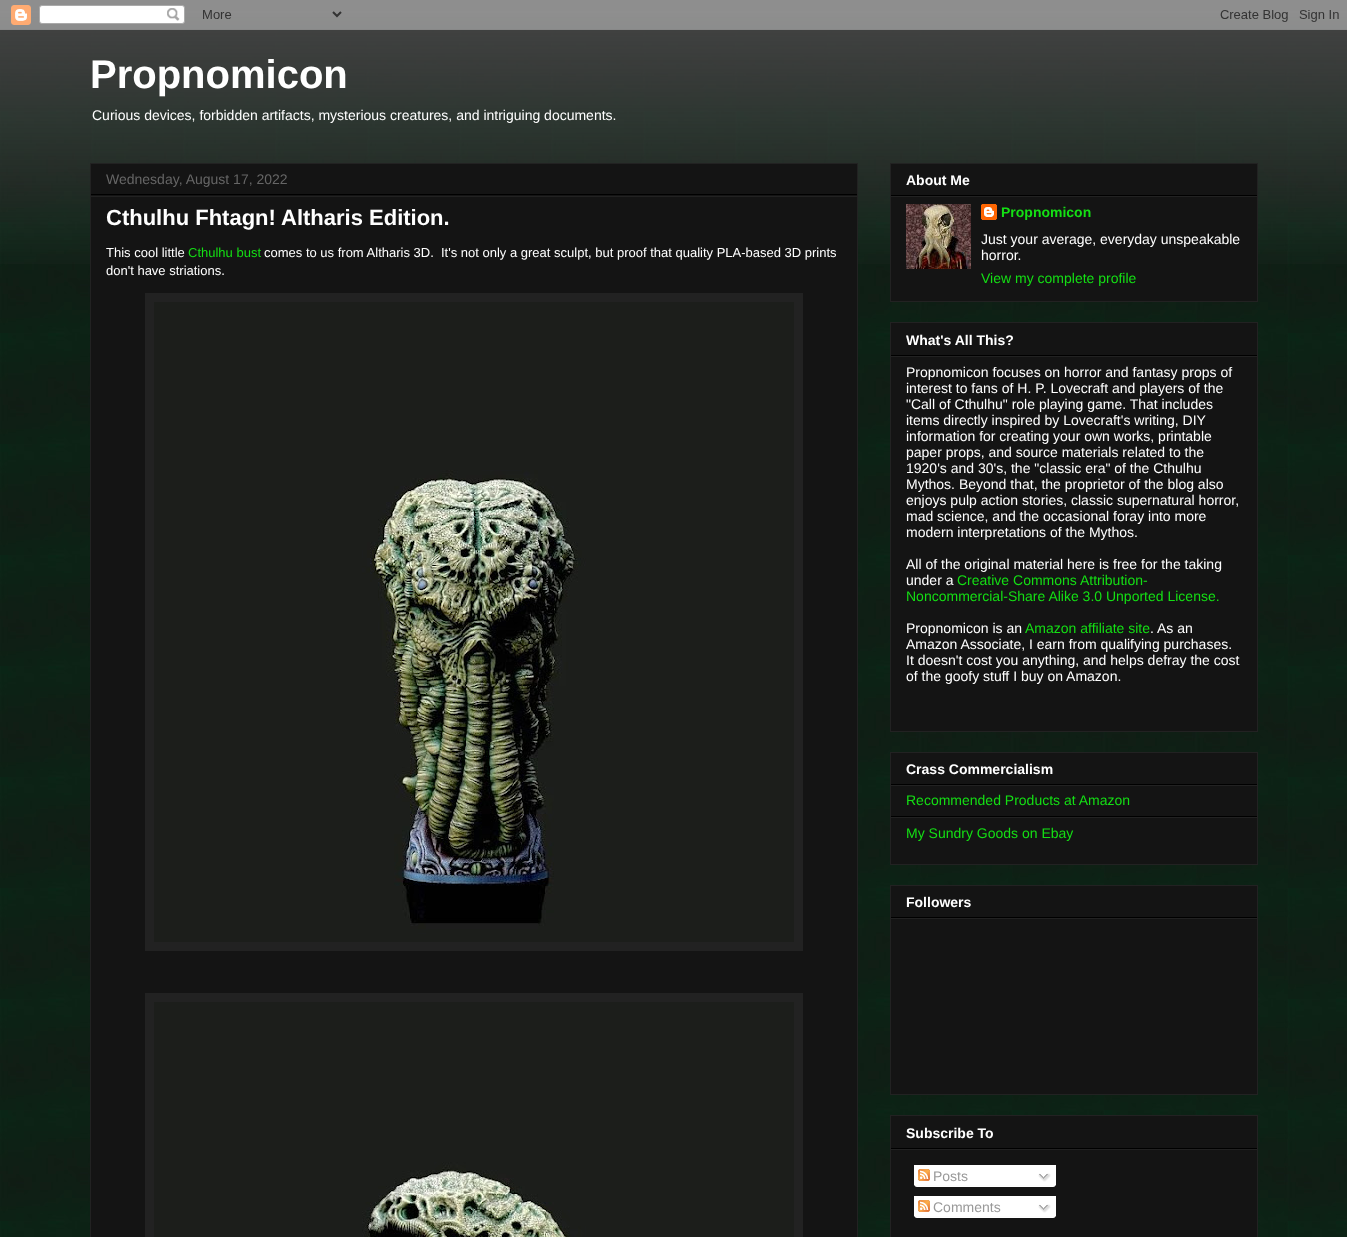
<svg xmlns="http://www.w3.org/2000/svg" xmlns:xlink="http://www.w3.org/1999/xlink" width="1347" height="1237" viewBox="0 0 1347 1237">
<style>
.cls-1{font:bold 40px Liberation Sans;fill:#ffffff}
.cls-2{font:14px Liberation Sans;fill:#ffffff}
.cls-3{font:14px Liberation Sans;fill:#666666}
.cls-4{font:bold 22px Liberation Sans;fill:#ffffff}
.cls-5{font:13px Liberation Sans;fill:#ffffff}
.cls-6{font:13px Liberation Sans;fill:#14df14}
.cls-7{font:bold 14px Liberation Sans;fill:#ffffff}
.cls-8{font:bold 14px Liberation Sans;fill:#14df14}
.cls-9{font:14px Liberation Sans;fill:#14df14}
.cls-10{font:14px Liberation Sans;fill:#999999}
</style>
<rect width="100%" height="100%" fill="#ffffff"/>
<image xlink:href="image0.png" x="0" y="13" width="1347" height="1224"/>
<image xlink:href="image1.png" x="0" y="0" width="1347" height="264"/>
<image xlink:href="image2.png" x="0" y="0" width="1347" height="30"/>
<rect fill="#141414" stroke="#222222" x="90.5" y="163.5" width="767" height="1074"/>
<rect fill="#000000" x="91" y="194" width="766" height="1"/>
<rect fill="#222222" x="91" y="196" width="766" height="1"/>
<rect fill="#222222" x="145" y="293" width="658" height="658"/>
<image xlink:href="image3.png" x="154" y="302" width="640" height="640"/>
<rect fill="#222222" x="145" y="993" width="658" height="244"/>
<image xlink:href="image4.png" x="154" y="1002" width="640" height="235"/>
<rect fill="#141414" stroke="#222222" x="890.5" y="163.5" width="367" height="138"/>
<rect fill="#000000" x="891" y="195" width="366" height="1"/>
<rect fill="#222222" x="891" y="196" width="366" height="1"/>
<image xlink:href="image5.png" x="906" y="204" width="65" height="65"/>
<image xlink:href="image6.png" x="981" y="204" width="16" height="16"/>
<rect fill="#141414" stroke="#222222" x="890.5" y="322.5" width="367" height="409"/>
<rect fill="#000000" x="891" y="355" width="366" height="1"/>
<rect fill="#222222" x="891" y="356" width="366" height="1"/>
<rect fill="#141414" stroke="#222222" x="890.5" y="752.5" width="367" height="112"/>
<rect fill="#000000" x="891" y="784" width="366" height="1"/>
<rect fill="#222222" x="891" y="785" width="366" height="1"/>
<rect fill="#000000" x="891" y="816" width="366" height="1"/>
<rect fill="#222222" x="891" y="817" width="366" height="1"/>
<rect fill="#141414" stroke="#222222" x="890.5" y="885.5" width="367" height="209"/>
<rect fill="#000000" x="891" y="917" width="366" height="1"/>
<rect fill="#222222" x="891" y="918" width="366" height="1"/>
<rect fill="#141414" stroke="#222222" x="890.5" y="1115.5" width="367" height="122"/>
<rect fill="#000000" x="891" y="1148" width="366" height="1"/>
<rect fill="#222222" x="891" y="1149" width="366" height="1"/>
<rect fill="#ffffff" x="914" y="1165" width="142" height="20"/>
<image xlink:href="image7.png" x="918" y="1169" width="12" height="12"/>
<image xlink:href="image8.png" x="1038" y="1173" width="13" height="9"/>
<image xlink:href="image9.png" x="914" y="1185" width="142" height="2"/>
<rect fill="#ffffff" x="914" y="1196" width="142" height="20"/>
<image xlink:href="image7.png" x="918" y="1200" width="12" height="12"/>
<image xlink:href="image8.png" x="1038" y="1204" width="13" height="9"/>
<image xlink:href="image9.png" x="914" y="1216" width="142" height="2"/>
<text class="cls-1" x="90" y="88">Propnomicon</text>
<text class="cls-2" x="92" y="120">Curious devices, forbidden artifacts, mysterious creatures, and intriguing documents.</text>
<text class="cls-3" x="106" y="184">Wednesday, August 17, 2022</text>
<text class="cls-4" x="106" y="225">Cthulhu Fhtagn!</text>
<text class="cls-4" x="281" y="225">Altharis Edition.</text>
<text class="cls-5" x="106" y="257">This cool little</text>
<text class="cls-6" x="188" y="257">Cthulhu bust</text>
<text class="cls-5" xml:space="preserve" x="264" y="257">comes to us from Altharis 3D.  It's not only a great sculpt, but proof that quality PLA-based 3D prints</text>
<text class="cls-5" x="106" y="275">don't have striations.</text>
<text class="cls-7" x="906" y="185">About Me</text>
<text class="cls-8" x="1001" y="217">Propnomicon</text>
<text class="cls-2"><tspan x="981" y="244">Just your average, everyday unspeakable</tspan><tspan x="981" y="260">horror.</tspan></text>
<text class="cls-9" x="981" y="283">View my complete profile</text>
<text class="cls-7" x="906" y="345">What's All This?</text>
<text class="cls-2"><tspan x="906" y="377">Propnomicon focuses on horror and fantasy props of</tspan><tspan x="906" y="393">interest to fans of H. P. Lovecraft and players of the</tspan><tspan x="906" y="409">"Call of Cthulhu" role playing game. That includes</tspan><tspan x="906" y="425">items directly inspired by Lovecraft's writing, DIY</tspan><tspan x="906" y="441">information for creating your own works, printable</tspan><tspan x="906" y="457">paper props, and source materials related to the</tspan><tspan x="906" y="473">1920's and 30's, the "classic era" of the Cthulhu</tspan><tspan x="906" y="489">Mythos. Beyond that, the proprietor of the blog also</tspan><tspan x="906" y="505">enjoys pulp action stories, classic supernatural horror,</tspan><tspan x="906" y="521">mad science, and the occasional foray into more</tspan><tspan x="906" y="537">modern interpretations of the Mythos.</tspan></text>
<text class="cls-2"><tspan x="906" y="569">All of the original material here is free for the taking</tspan><tspan x="906" y="585">under a</tspan></text>
<text class="cls-9" x="957" y="585">Creative Commons Attribution-</text>
<text class="cls-9" x="906" y="601">Noncommercial-Share Alike 3.0 Unported License.</text>
<text class="cls-2" x="906" y="633">Propnomicon is an</text>
<text class="cls-9" x="1025" y="633">Amazon affiliate site</text>
<text class="cls-2" x="1150" y="633">.</text>
<text class="cls-2" x="1157" y="633">As an</text>
<text class="cls-2"><tspan x="906" y="649">Amazon Associate, I earn from qualifying purchases.</tspan><tspan x="906" y="665">It doesn't cost you anything, and helps defray the cost</tspan><tspan x="906" y="681">of the goofy stuff I buy on Amazon.</tspan></text>
<text class="cls-7" x="906" y="774">Crass Commercialism</text>
<text class="cls-9" x="906" y="805">Recommended Products at Amazon</text>
<text class="cls-9" x="906" y="838">My Sundry Goods on Ebay</text>
<text class="cls-7" x="906" y="907">Followers</text>
<text class="cls-7" x="906" y="1138">Subscribe To</text>
<text class="cls-10" x="933" y="1181">Posts</text>
<text class="cls-10" x="933" y="1212">Comments</text>
</svg>
